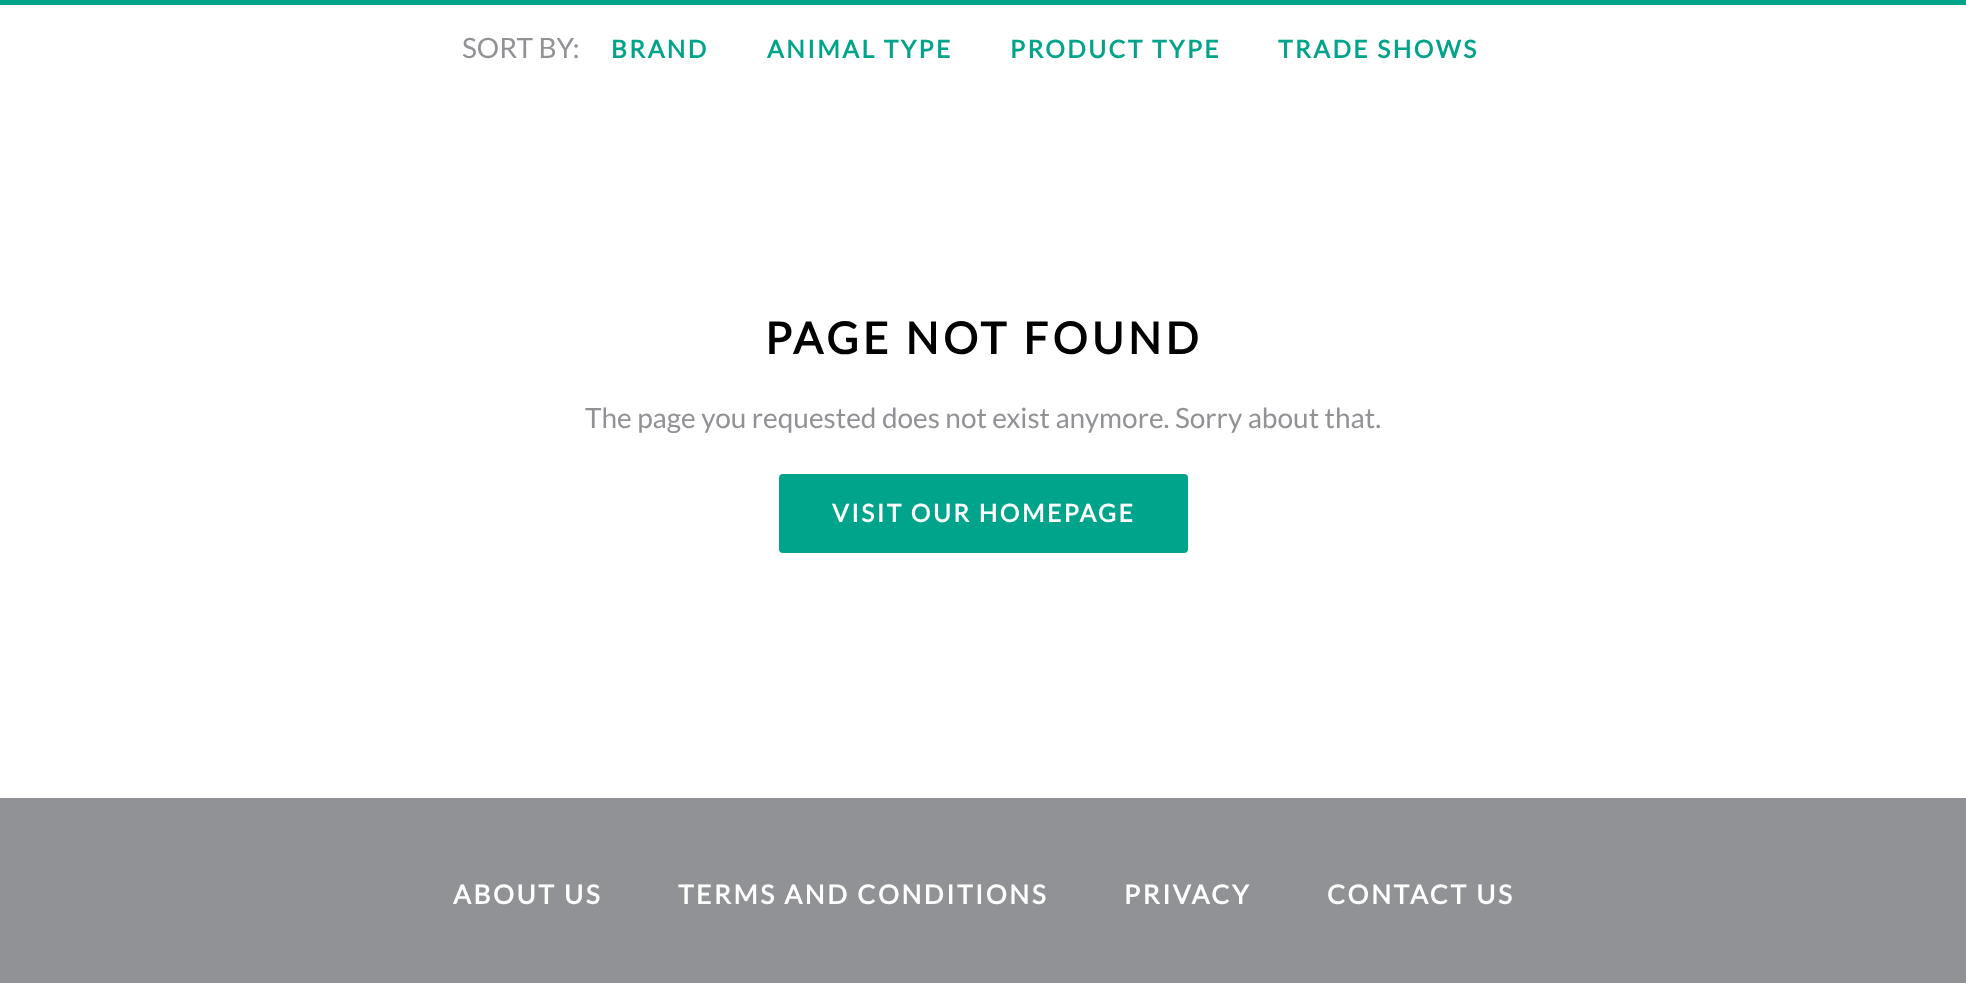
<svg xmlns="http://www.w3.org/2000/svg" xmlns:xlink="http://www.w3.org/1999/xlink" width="1966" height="983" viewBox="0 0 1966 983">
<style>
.cls-1{font:28px Lato;fill:#919295}
.cls-2{font:bold 24.5px Lato;letter-spacing:2.5px;fill:#00a48a}
.cls-3{font:bold 43.75px Lato;letter-spacing:4.4px;fill:#000000}
.cls-4{font:bold 24.5px Lato;letter-spacing:2.5px;fill:#ffffff}
.cls-5{font:bold 26.25px Lato;letter-spacing:2.6px;fill:#ffffff}
</style>
<rect width="100%" height="100%" fill="#ffffff"/>
<rect fill="#00a48a" x="0" y="0" width="1966" height="5"/>
<rect fill="#00a48a" x="779" y="474" width="409" height="79" rx="4"/>
<rect fill="#919295" x="0" y="798" width="1966" height="185"/>
<text class="cls-1" x="462" y="58">SORT BY:</text>
<text class="cls-2" x="611" y="58">BRAND</text>
<text class="cls-2" x="767" y="58">ANIMAL TYPE</text>
<text class="cls-2" x="1010" y="58">PRODUCT TYPE</text>
<text class="cls-2" x="1278" y="58">TRADE SHOWS</text>
<text class="cls-3" x="765" y="354">PAGE NOT FOUND</text>
<text class="cls-1" x="585" y="428">The page you requested does not exist anymore. Sorry about that.</text>
<text class="cls-4" x="832" y="522">VISIT OUR HOMEPAGE</text>
<text class="cls-5" x="453" y="904">ABOUT US</text>
<text class="cls-5" x="678" y="904">TERMS AND CONDITIONS</text>
<text class="cls-5" x="1124" y="904">PRIVACY</text>
<text class="cls-5" x="1327" y="904">CONTACT US</text>
</svg>
